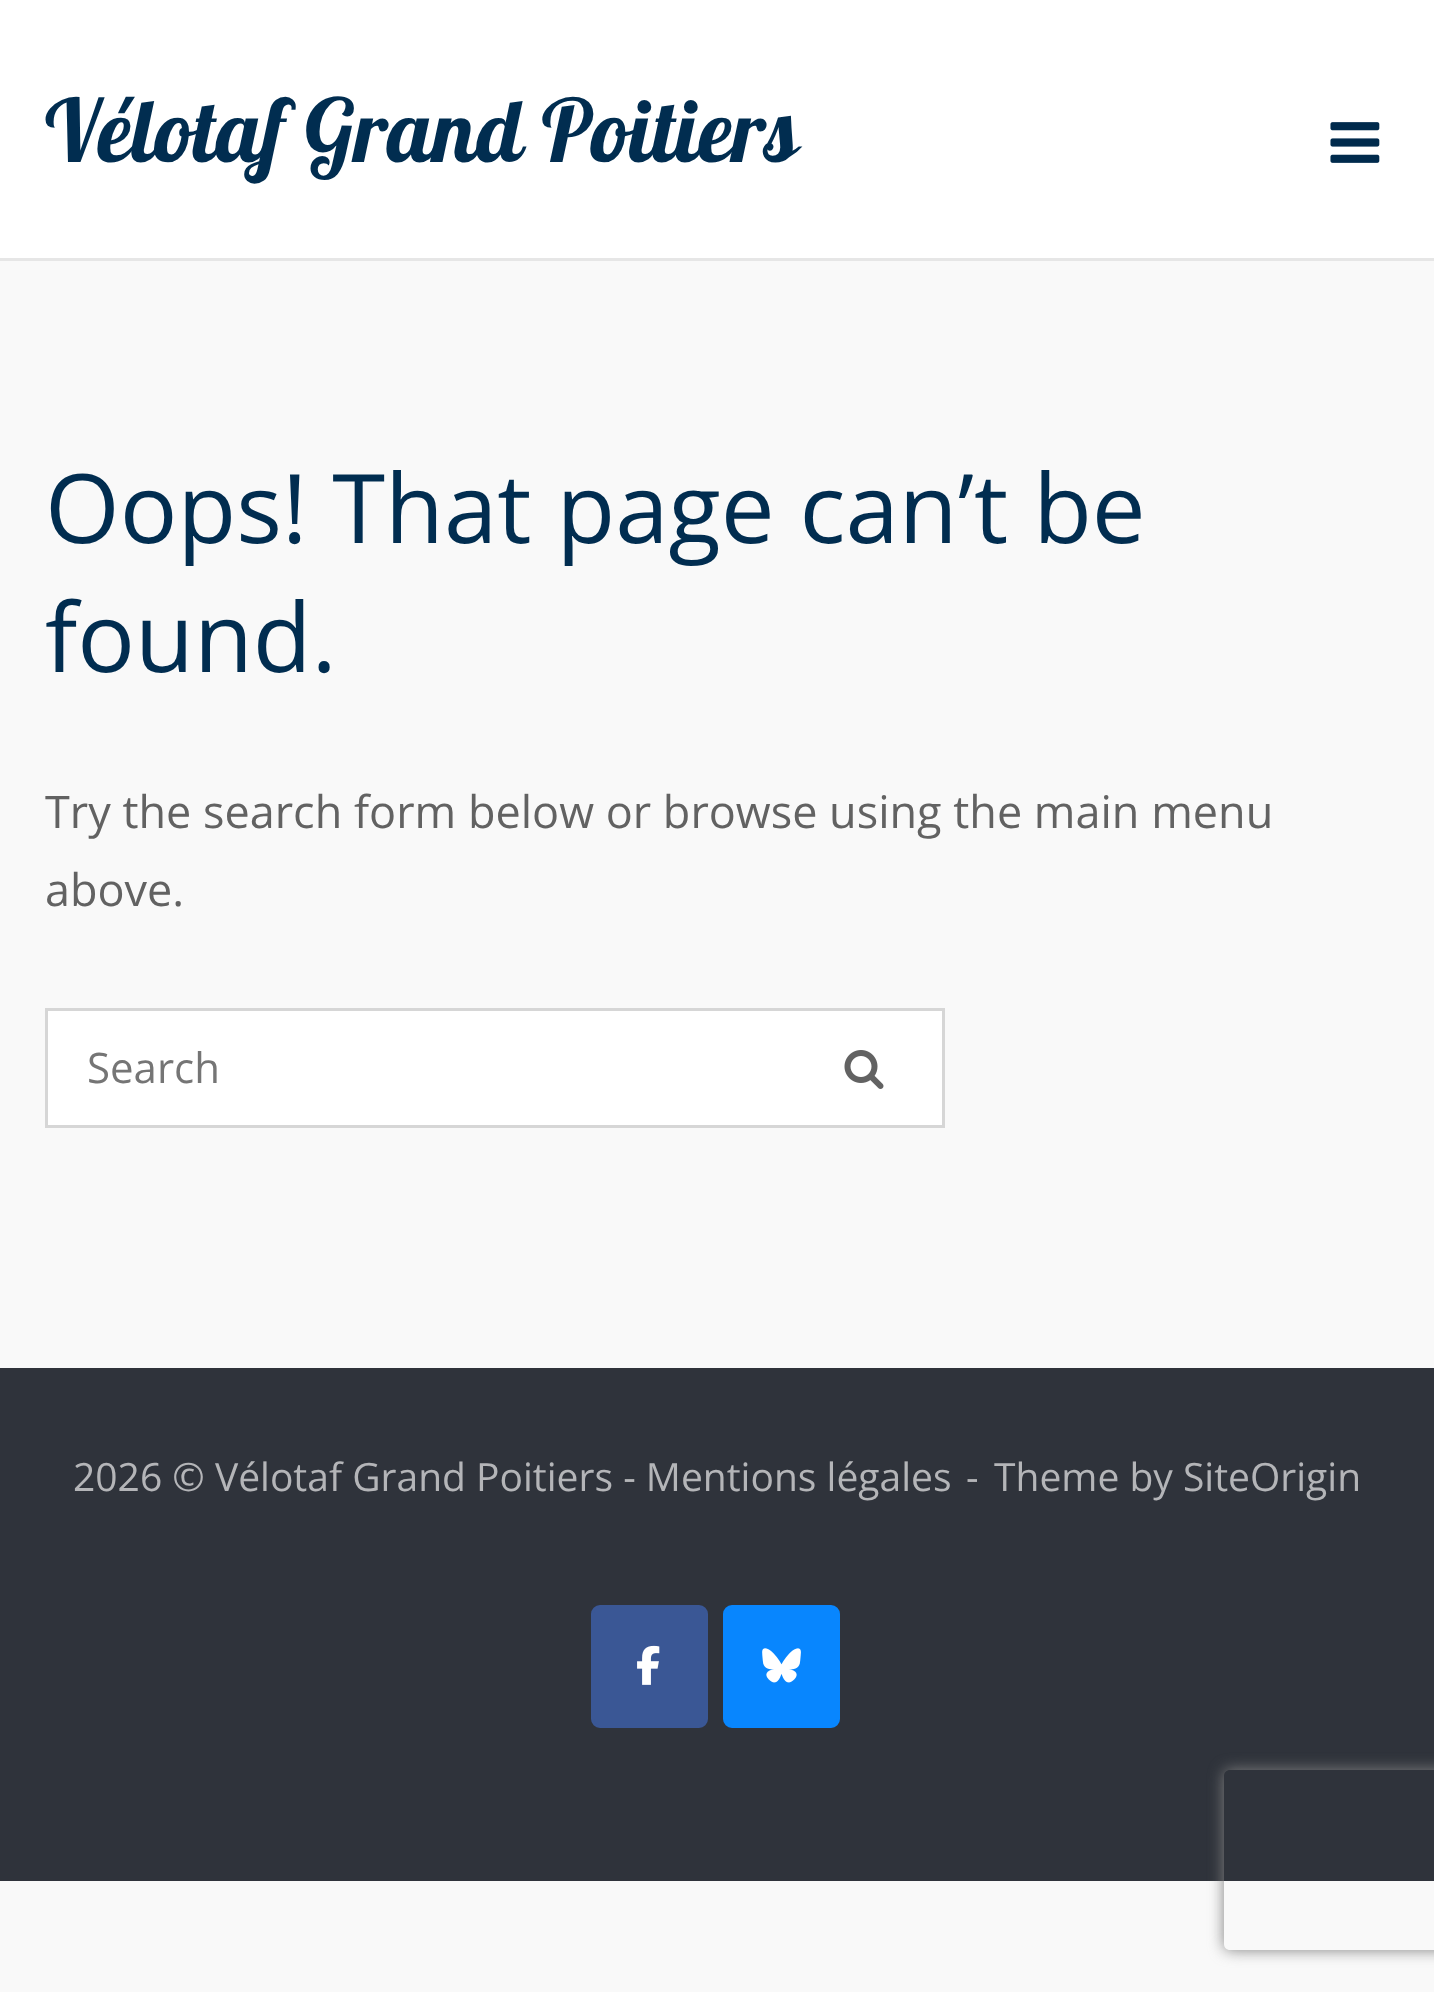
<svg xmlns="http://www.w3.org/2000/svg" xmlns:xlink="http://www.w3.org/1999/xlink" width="1434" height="1992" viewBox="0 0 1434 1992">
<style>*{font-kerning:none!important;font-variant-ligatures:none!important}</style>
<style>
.cls-1{font:87px Lobster;fill:#012d50}
.cls-2{font:96px Open Sans;fill:#012d50}
.cls-3{font:45px Open Sans;fill:#626262}
.cls-4{font:42px Open Sans;fill:#757575}
.cls-5{font:39px Open Sans;fill:#b4b5b8}
</style>
<defs>
<clipPath id="clip1"><path d="M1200 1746H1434V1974H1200ZM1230 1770H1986C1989.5 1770 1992 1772.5 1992 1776V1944C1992 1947.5 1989.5 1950 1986 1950H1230C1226.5 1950 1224 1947.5 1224 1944V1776C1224 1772.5 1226.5 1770 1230 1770Z" clip-rule="evenodd"/></clipPath>
</defs>
<rect width="100%" height="100%" fill="#f9f9f9"/>
<rect fill="#ffffff" x="0" y="0" width="1434" height="258"/>
<rect fill="#e6e6e6" x="0" y="258" width="1434" height="3"/>
<image xlink:href="image0.png" x="1330" y="122" width="50" height="41"/>
<rect fill="#ffffff" stroke="#d6d6d6" stroke-width="3" x="46.5" y="1009.5" width="897" height="117"/>
<image xlink:href="image1.png" x="844" y="1050" width="40" height="39"/>
<rect fill="#2f333b" x="0" y="1368" width="1434" height="513"/>
<rect fill="#3a5795" stroke="#3a5795" stroke-width="3" x="592.5" y="1606.5" width="114" height="120" rx="7.5"/>
<image xlink:href="image2.png" x="637" y="1645" width="23" height="40"/>
<rect fill="#0886fe" stroke="#0886fe" stroke-width="3" x="724.5" y="1606.5" width="114" height="120" rx="7.5"/>
<image xlink:href="image3.png" x="762" y="1648" width="39" height="35"/>
<g clip-path="url(#clip1)">
<rect fill="#808080" filter="blur(7.5px)" x="1224" y="1770" width="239" height="180" rx="6"/>
</g>
<text class="cls-1" x="45" y="162">Vélotaf Grand Poitiers</text>
<text class="cls-2"><tspan x="45" y="543">Oops! That page can’t be</tspan><tspan x="45" y="672">found.</tspan></text>
<text class="cls-3"><tspan x="45" y="828">Try the search form below or browse using the main menu</tspan><tspan x="45" y="906">above.</tspan></text>
<text class="cls-4" x="87" y="1083">Search</text>
<text class="cls-5" x="73" y="1491">2026 © Vélotaf Grand Poitiers - Mentions légales</text>
<text class="cls-5" x="966" y="1491">-</text>
<text class="cls-5" x="994" y="1491">Theme by SiteOrigin</text>
</svg>
